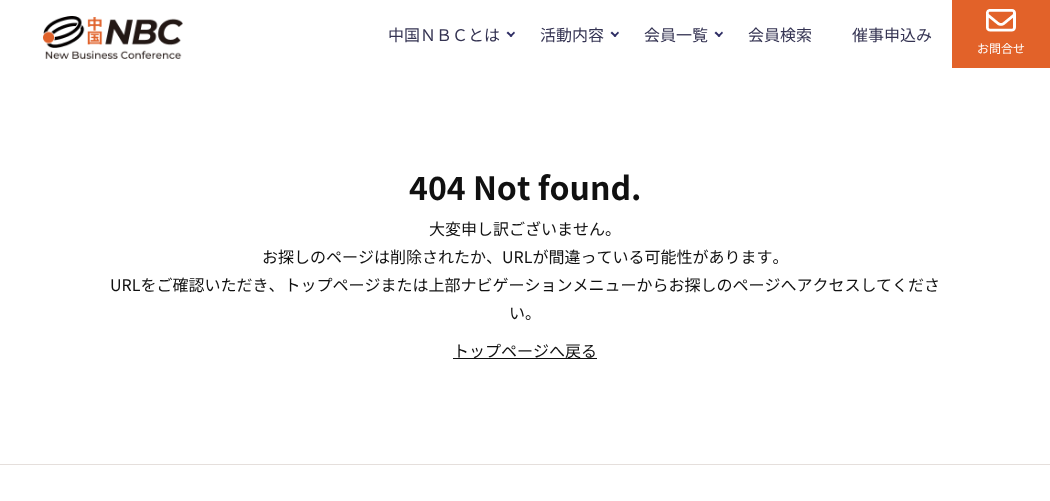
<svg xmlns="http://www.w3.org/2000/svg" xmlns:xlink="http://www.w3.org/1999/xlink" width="1050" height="501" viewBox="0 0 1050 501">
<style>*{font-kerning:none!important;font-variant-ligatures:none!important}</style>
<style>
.cls-1{font:16px Noto Sans JP;fill:#343352}
.cls-2{font:12px Noto Sans JP;fill:#ffffff}
.cls-3{font:bold 32px Noto Sans JP;fill:#101010}
.cls-4{font:16px Noto Sans JP;fill:#101010}
</style>
<rect width="100%" height="100%" fill="#ffffff"/>
<image xlink:href="image0.png" x="43" y="16" width="140" height="43"/>
<path fill="#2d2c63" d="M515 33L511 37L509.5 36L514 31.5Z"/>
<path fill="#2d2c63" d="M512.5 36L511 37L506.5 33L508 31.5Z"/>
<path fill="#2d2c63" d="M619 33L615 37L613.5 36L618 31.5Z"/>
<path fill="#2d2c63" d="M616.5 36L615 37L610.5 33L612 31.5Z"/>
<path fill="#2d2c63" d="M723 33L719 37L717.5 36L722 31.5Z"/>
<path fill="#2d2c63" d="M720.5 36L719 37L714.5 33L716 31.5Z"/>
<rect fill="#e26229" x="952" y="0" width="98" height="68"/>
<image xlink:href="image1.png" x="986" y="9" width="30" height="23"/>
<rect fill="#101010" x="453" y="358" width="144" height="1"/>
<rect fill="#e5dfdc" x="0" y="464" width="1050" height="1"/>
<text class="cls-1" x="388" y="41">中国ＮＢＣとは</text>
<text class="cls-1" x="540" y="41">活動内容</text>
<text class="cls-1" x="644" y="41">会員一覧</text>
<text class="cls-1" x="748" y="41">会員検索</text>
<text class="cls-1" x="852" y="41">催事申込み</text>
<text class="cls-2" x="977" y="53">お問合せ</text>
<text class="cls-3" x="409" y="200">404 Not found.</text>
<text class="cls-4" x="429" y="235">大変申し訳ございません。</text>
<text class="cls-4" x="262" y="263">お探しのページは削除されたか、URLが間違っている可能性があります。</text>
<text class="cls-4" x="110" y="291">URLをご確認いただき、トップページまたは上部ナビゲーションメニューからお探しのページへアクセスし</text>
<text class="cls-4" x="876" y="291">てくださ</text>
<text class="cls-4" x="509" y="319">い。</text>
<text class="cls-4" x="453" y="357">トップページへ戻る</text>
</svg>
